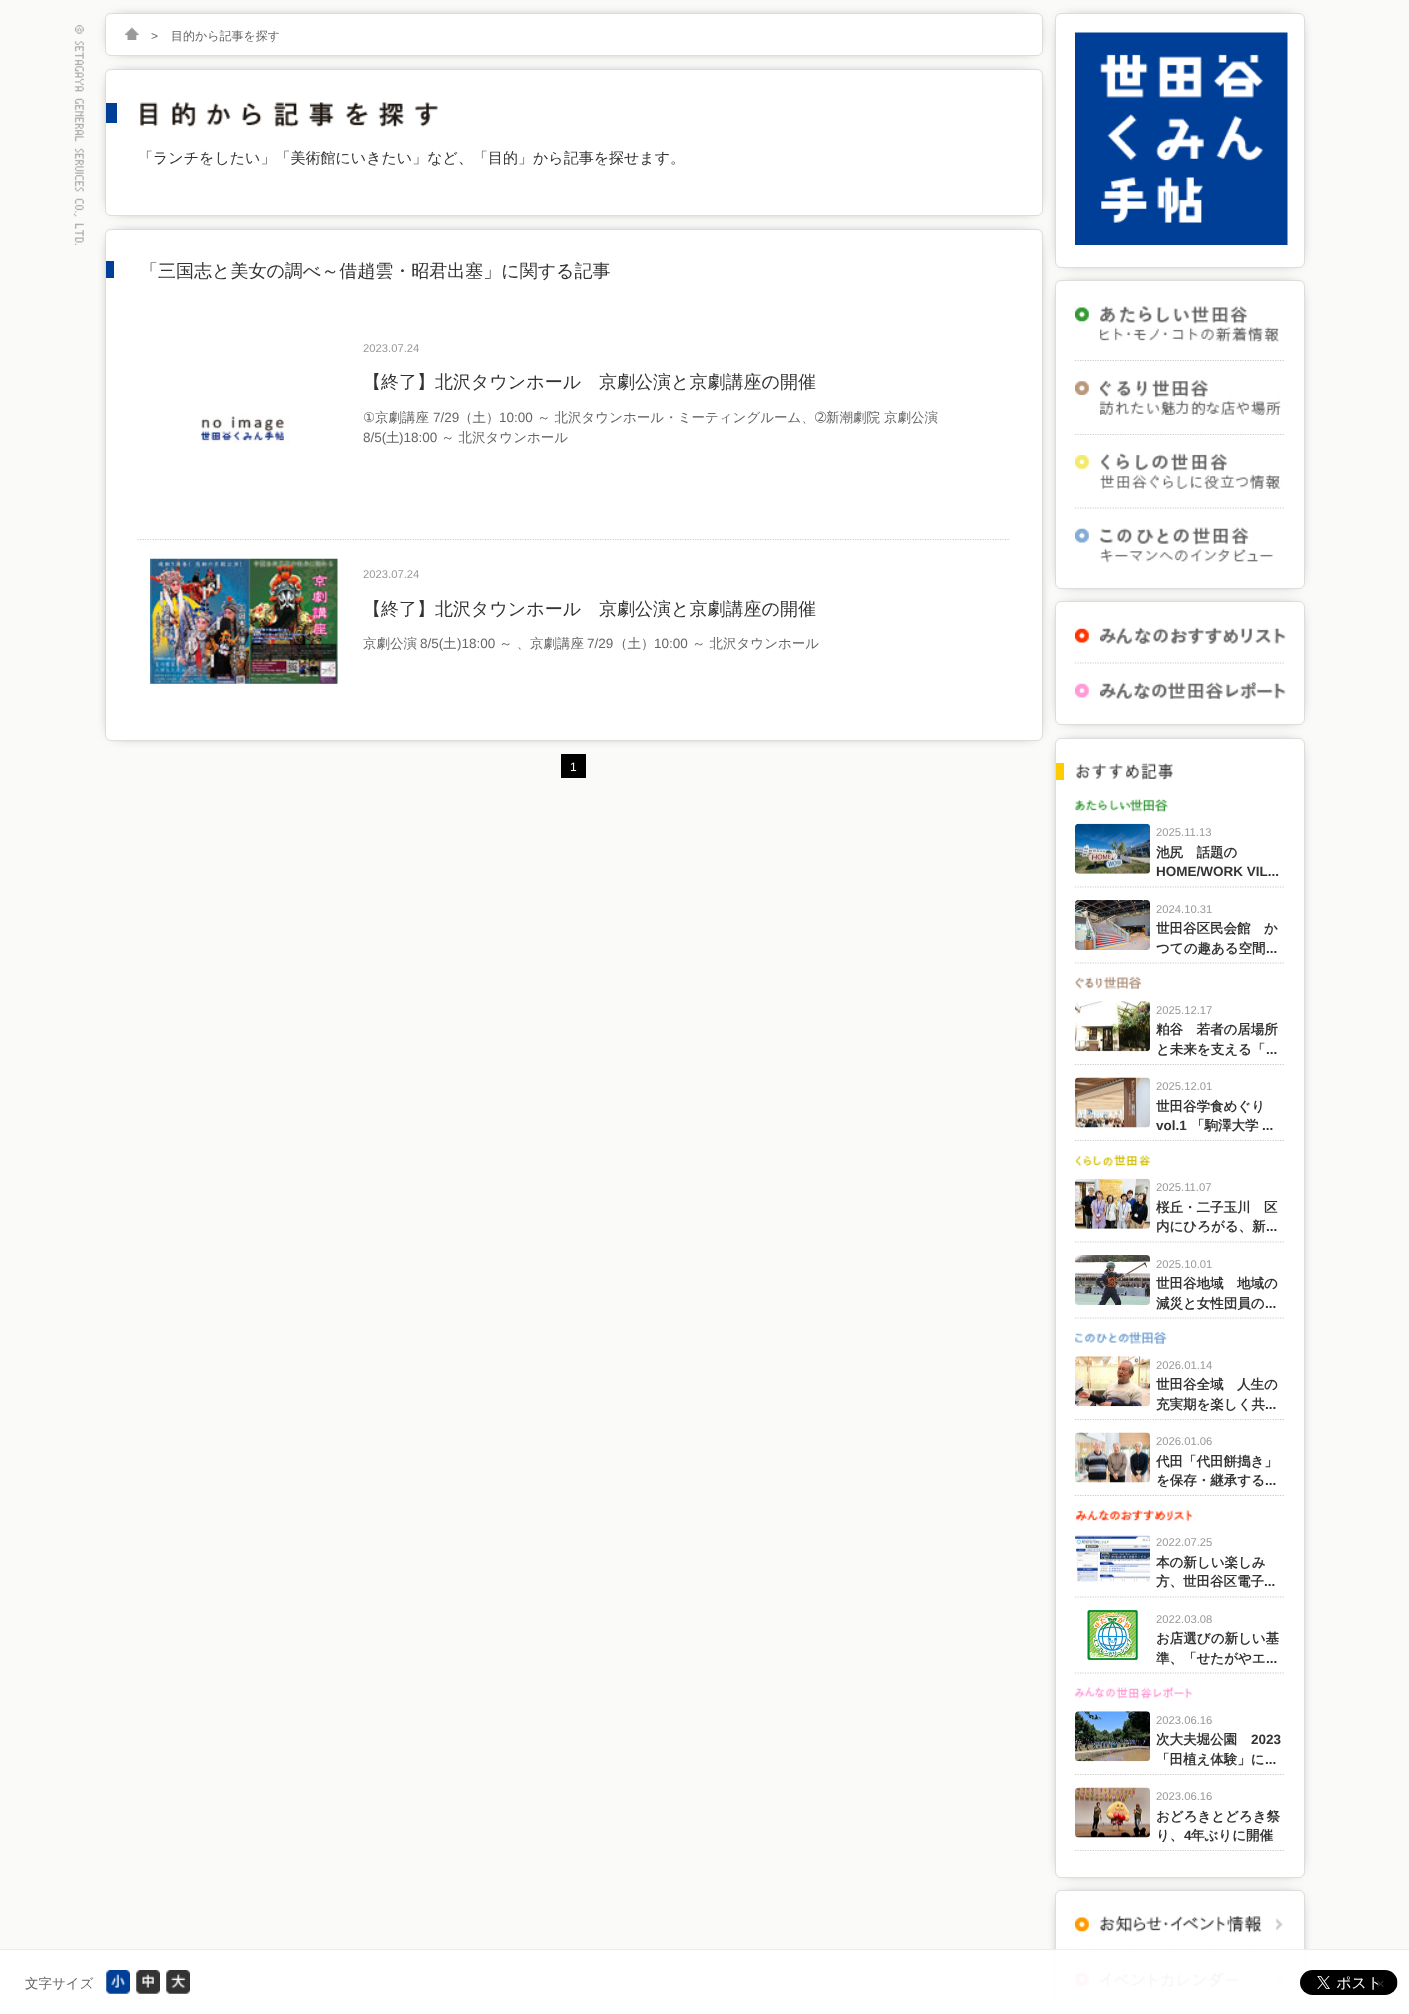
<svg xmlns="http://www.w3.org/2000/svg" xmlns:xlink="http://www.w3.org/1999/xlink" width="1409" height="2014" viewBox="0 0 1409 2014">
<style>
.cls-1{font:12px Liberation Sans;fill:#666666}
.cls-2{font:500 12px WenQuanYi Zen Hei;fill:#666666}
.cls-3{font:500 15px WenQuanYi Zen Hei;fill:#333333}
.cls-4{font:500 18px WenQuanYi Zen Hei;fill:#333333}
.cls-5{font:11.25px Liberation Sans;fill:#999999}
.cls-6{font:13.5px DejaVu Sans;fill:#666666}
.cls-7{font:500 13.5px WenQuanYi Zen Hei;fill:#666666}
.cls-8{font:13.5px Liberation Sans;fill:#666666}
.cls-9{font:12px Liberation Sans;fill:#ffffff}
.cls-10{font:bold 13.5px WenQuanYi Zen Hei;fill:#333333}
.cls-11{font:bold 13.5px Liberation Sans;fill:#333333}
.cls-12{font:15px Liberation Sans;fill:#333333}
</style>
<rect width="100%" height="100%" fill="#fafaf8"/>
<image xlink:href="image0.png" x="73" y="25" width="11" height="220"/>
<rect fill="#000000" filter="blur(7.5px)" x="115" y="23" width="918" height="23"/>
<rect fill="#ffffff" stroke="#dddddd" x="105.5" y="13.5" width="937" height="42" rx="5.5"/>
<image xlink:href="image1.png" x="125" y="27" width="14" height="13"/>
<rect fill="#000000" filter="blur(7.5px)" x="115" y="79" width="918" height="127"/>
<rect fill="#ffffff" stroke="#dddddd" x="105.5" y="69.5" width="937" height="146" rx="5.5"/>
<rect fill="#003f97" x="106" y="103" width="11" height="20"/>
<image xlink:href="image2.png" x="140" y="102" width="298" height="25"/>
<rect fill="#000000" filter="blur(7.5px)" x="115" y="239" width="918" height="492"/>
<rect fill="#ffffff" stroke="#dddddd" x="105.5" y="229.5" width="937" height="511" rx="5.5"/>
<rect fill="#003f97" x="106" y="261" width="8" height="17"/>
<path fill="none" stroke="#cccccc" stroke-width="1.2" stroke-dasharray="1.25 1.25" d="M137.5 539.5H1010"/>
<image xlink:href="image3.png" x="200" y="415" width="90" height="29"/>
<image xlink:href="image4.png" x="150" y="558" width="188" height="126"/>
<rect fill="#000000" x="561" y="754" width="25" height="24"/>
<rect fill="#000000" filter="blur(7.5px)" x="1065" y="23" width="230" height="235"/>
<rect fill="#ffffff" stroke="#dddddd" x="1055.5" y="13.5" width="249" height="254" rx="5.5"/>
<image xlink:href="image5.png" x="1075" y="32" width="213" height="213"/>
<rect fill="#000000" filter="blur(7.5px)" x="1065" y="290" width="230" height="289"/>
<rect fill="#ffffff" stroke="#dddddd" x="1055.5" y="280.5" width="249" height="308" rx="5.5"/>
<image xlink:href="image6.png" x="1075" y="307" width="14" height="15"/>
<path fill="none" stroke="#cccccc" stroke-width="1.2" stroke-dasharray="1.25 1.25" d="M1075 360.5H1285"/>
<image xlink:href="image7.png" x="1100" y="306" width="179" height="36"/>
<image xlink:href="image8.png" x="1075" y="381" width="14" height="14"/>
<path fill="none" stroke="#cccccc" stroke-width="1.2" stroke-dasharray="1.25 1.25" d="M1075 434.5H1285"/>
<image xlink:href="image9.png" x="1100" y="380" width="181" height="35"/>
<image xlink:href="image10.png" x="1075" y="455" width="14" height="14"/>
<path fill="none" stroke="#cccccc" stroke-width="1.2" stroke-dasharray="1.25 1.25" d="M1075 508H1285"/>
<image xlink:href="image11.png" x="1100" y="453" width="181" height="36"/>
<image xlink:href="image12.png" x="1075" y="528" width="14" height="15"/>
<image xlink:href="image13.png" x="1100" y="527" width="173" height="36"/>
<rect fill="#000000" filter="blur(7.5px)" x="1065" y="611" width="230" height="104"/>
<rect fill="#ffffff" stroke="#dddddd" x="1055.5" y="601.5" width="249" height="123" rx="5.5"/>
<image xlink:href="image14.png" x="1075" y="628" width="14" height="15"/>
<path fill="none" stroke="#cccccc" stroke-width="1.2" stroke-dasharray="1.25 1.25" d="M1075 663H1285"/>
<image xlink:href="image15.png" x="1100" y="627" width="186" height="17"/>
<image xlink:href="image16.png" x="1075" y="683" width="14" height="15"/>
<image xlink:href="image17.png" x="1100" y="682" width="186" height="17"/>
<rect fill="#000000" filter="blur(7.5px)" x="1065" y="748" width="230" height="1120"/>
<rect fill="#ffffff" stroke="#dddddd" x="1055.5" y="738.5" width="249" height="1139" rx="5.5"/>
<rect fill="#ffcc00" x="1056" y="763" width="8" height="17"/>
<image xlink:href="image18.png" x="1076" y="763" width="97" height="17"/>
<image xlink:href="image19.png" x="1075" y="798" width="93" height="14"/>
<path fill="none" stroke="#cccccc" stroke-width="1.2" stroke-dasharray="1.25 1.25" d="M1075 887H1285"/>
<image xlink:href="image20.png" x="1075" y="823" width="75" height="51"/>
<path fill="none" stroke="#cccccc" stroke-width="1.2" stroke-dasharray="1.25 1.25" d="M1075 963H1285"/>
<image xlink:href="image21.png" x="1075" y="900" width="75" height="50"/>
<image xlink:href="image22.png" x="1075" y="976" width="67" height="13"/>
<path fill="none" stroke="#cccccc" stroke-width="1.2" stroke-dasharray="1.25 1.25" d="M1075 1064.5H1285"/>
<image xlink:href="image23.png" x="1075" y="1001" width="75" height="51"/>
<path fill="none" stroke="#cccccc" stroke-width="1.2" stroke-dasharray="1.25 1.25" d="M1075 1140.5H1285"/>
<image xlink:href="image24.png" x="1075" y="1077" width="75" height="51"/>
<image xlink:href="image25.png" x="1075" y="1154" width="76" height="13"/>
<path fill="none" stroke="#cccccc" stroke-width="1.2" stroke-dasharray="1.25 1.25" d="M1075 1242H1285"/>
<image xlink:href="image26.png" x="1075" y="1178" width="75" height="51"/>
<path fill="none" stroke="#cccccc" stroke-width="1.2" stroke-dasharray="1.25 1.25" d="M1075 1318H1285"/>
<image xlink:href="image27.png" x="1075" y="1255" width="75" height="50"/>
<image xlink:href="image28.png" x="1075" y="1331" width="92" height="13"/>
<path fill="none" stroke="#cccccc" stroke-width="1.2" stroke-dasharray="1.25 1.25" d="M1075 1419.5H1285"/>
<image xlink:href="image29.png" x="1075" y="1356" width="75" height="51"/>
<path fill="none" stroke="#cccccc" stroke-width="1.2" stroke-dasharray="1.25 1.25" d="M1075 1495.5H1285"/>
<image xlink:href="image30.png" x="1075" y="1432" width="75" height="51"/>
<image xlink:href="image31.png" x="1075" y="1509" width="118" height="13"/>
<path fill="none" stroke="#cccccc" stroke-width="1.2" stroke-dasharray="1.25 1.25" d="M1075 1597H1285"/>
<image xlink:href="image32.png" x="1075" y="1535" width="75" height="47"/>
<path fill="none" stroke="#cccccc" stroke-width="1.2" stroke-dasharray="1.25 1.25" d="M1075 1673H1285"/>
<image xlink:href="image33.png" x="1087" y="1610" width="51" height="50"/>
<image xlink:href="image34.png" x="1075" y="1687" width="118" height="12"/>
<path fill="none" stroke="#cccccc" stroke-width="1.2" stroke-dasharray="1.25 1.25" d="M1075 1774.5H1285"/>
<image xlink:href="image35.png" x="1075" y="1711" width="75" height="51"/>
<path fill="none" stroke="#cccccc" stroke-width="1.2" stroke-dasharray="1.25 1.25" d="M1075 1850.5H1285"/>
<image xlink:href="image36.png" x="1075" y="1787" width="75" height="51"/>
<rect fill="#000000" filter="blur(7.5px)" x="1065" y="1900" width="230" height="105"/>
<rect fill="#ffffff" stroke="#dddddd" x="1055.5" y="1890.5" width="249" height="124" rx="5.5"/>
<image xlink:href="image37.png" x="1075" y="1917" width="208" height="15"/>
<path fill="none" stroke="#cccccc" stroke-width="1.2" stroke-dasharray="1.25 1.25" d="M1075 1952H1285"/>
<image xlink:href="image38.png" x="1100" y="1916" width="162" height="17"/>
<image xlink:href="image39.png" x="1075" y="1972" width="208" height="15"/>
<path fill="none" stroke="#cccccc" stroke-width="1.2" stroke-dasharray="1.25 1.25" d="M1075 2007H1285"/>
<image xlink:href="image40.png" x="1100" y="1971" width="139" height="17"/>
<image xlink:href="image41.png" x="0" y="1950" width="1409" height="64"/>
<rect fill="#eeeeee" x="0" y="1949" width="1409" height="1"/>
<image xlink:href="image42.png" x="106" y="1970" width="24" height="24"/>
<image xlink:href="image43.png" x="136" y="1970" width="24" height="24"/>
<image xlink:href="image44.png" x="166" y="1970" width="24" height="24"/>
<image xlink:href="image45.png" x="1300" y="1970" width="98" height="25"/>
<text class="cls-1" x="151" y="40">&gt;</text>
<text class="cls-2" x="171" y="40">目的から記事を探す</text>
<text class="cls-3" x="138" y="163">「ランチをしたい」「美術館にいきたい」など、「目的」から記事を探せます。</text>
<text class="cls-4" x="140" y="277">「三国志と美女の調べ～借趙雲・昭君出塞」に関する記事</text>
<text class="cls-5" x="363" y="352">2023.07.24</text>
<text class="cls-4" x="363" y="388">【終了】北沢タウンホール　京劇公演と京劇講座の開催</text>
<text class="cls-6" x="363" y="422">①</text>
<text class="cls-7" x="375" y="422">京劇講座</text>
<text class="cls-8" x="433" y="422">7/29</text>
<text class="cls-7" x="459" y="422">（土）</text>
<text class="cls-8" x="499" y="422">10:00</text>
<text class="cls-7" x="537" y="422">～ 北沢タウンホール・ミーティングルーム、</text>
<text class="cls-6" x="815" y="422">➁</text>
<text class="cls-7" x="826" y="422">新潮劇院 京劇公演</text>
<text class="cls-8" x="363" y="442">8/5(</text>
<text class="cls-7" x="386" y="442">土</text>
<text class="cls-8" x="399" y="442">)18:00</text>
<text class="cls-7" x="441" y="442">～ 北沢タウンホール</text>
<text class="cls-5" x="363" y="578">2023.07.24</text>
<text class="cls-4" x="363" y="615">【終了】北沢タウンホール　京劇公演と京劇講座の開催</text>
<text class="cls-7" x="363" y="648">京劇公演</text>
<text class="cls-8" x="420" y="648">8/5(</text>
<text class="cls-7" x="443" y="648">土</text>
<text class="cls-8" x="457" y="648">)18:00</text>
<text class="cls-7" x="499" y="648">～ 、京劇講座</text>
<text class="cls-8" x="587" y="648">7/29</text>
<text class="cls-7" x="614" y="648">（土）</text>
<text class="cls-8" x="654" y="648">10:00</text>
<text class="cls-7" x="692" y="648">～ 北沢タウンホール</text>
<text class="cls-9" x="570" y="771">1</text>
<text class="cls-5" x="1156" y="836">2025.11.13</text>
<text class="cls-10" x="1156" y="857">池尻　話題の</text>
<text class="cls-11" x="1156" y="876">HOME/WORK VIL...</text>
<text class="cls-5" x="1156" y="913">2024.10.31</text>
<text class="cls-10"><tspan x="1156" y="933">世田谷区民会館　か</tspan><tspan x="1156" y="953">つての趣ある空間</tspan></text>
<text class="cls-11" x="1266" y="953">...</text>
<text class="cls-5" x="1156" y="1014">2025.12.17</text>
<text class="cls-10"><tspan x="1156" y="1034">粕谷　若者の居場所</tspan><tspan x="1156" y="1054">と未来を支える「</tspan></text>
<text class="cls-11" x="1266" y="1054">...</text>
<text class="cls-5" x="1156" y="1090">2025.12.01</text>
<text class="cls-10" x="1156" y="1111">世田谷学食めぐり</text>
<text class="cls-11" x="1156" y="1130">vol.1</text>
<text class="cls-10" x="1191" y="1130">「駒澤大学</text>
<text class="cls-11" x="1262" y="1130">...</text>
<text class="cls-5" x="1156" y="1191">2025.11.07</text>
<text class="cls-10"><tspan x="1156" y="1212">桜丘・二子玉川　区</tspan><tspan x="1156" y="1231">内にひろがる、新</tspan></text>
<text class="cls-11" x="1266" y="1231">...</text>
<text class="cls-5" x="1156" y="1268">2025.10.01</text>
<text class="cls-10"><tspan x="1156" y="1288">世田谷地域　地域の</tspan><tspan x="1156" y="1308">減災と女性団員の</tspan></text>
<text class="cls-11" x="1265" y="1308">...</text>
<text class="cls-5" x="1156" y="1369">2026.01.14</text>
<text class="cls-10"><tspan x="1156" y="1389">世田谷全域　人生の</tspan><tspan x="1156" y="1409">充実期を楽しく共</tspan></text>
<text class="cls-11" x="1265" y="1409">...</text>
<text class="cls-5" x="1156" y="1445">2026.01.06</text>
<text class="cls-10"><tspan x="1156" y="1466">代田「代田餅搗き」</tspan><tspan x="1156" y="1485">を保存・継承する</tspan></text>
<text class="cls-11" x="1265" y="1485">...</text>
<text class="cls-5" x="1156" y="1546">2022.07.25</text>
<text class="cls-10"><tspan x="1156" y="1567">本の新しい楽しみ</tspan><tspan x="1156" y="1586">方、世田谷区電子</tspan></text>
<text class="cls-11" x="1264" y="1586">...</text>
<text class="cls-5" x="1156" y="1623">2022.03.08</text>
<text class="cls-10"><tspan x="1156" y="1643">お店選びの新しい基</tspan><tspan x="1156" y="1663">準、「せたがやエ</tspan></text>
<text class="cls-11" x="1266" y="1663">...</text>
<text class="cls-5" x="1156" y="1724">2023.06.16</text>
<text class="cls-10" x="1156" y="1744">次大夫堀公園</text>
<text class="cls-11" x="1251" y="1744">2023</text>
<text class="cls-10" x="1156" y="1764">「田植え体験」に</text>
<text class="cls-11" x="1265" y="1764">...</text>
<text class="cls-5" x="1156" y="1800">2023.06.16</text>
<text class="cls-10"><tspan x="1156" y="1821">おどろきとどろき祭</tspan><tspan x="1156" y="1840">り、</tspan></text>
<text class="cls-11" x="1184" y="1840">4</text>
<text class="cls-10" x="1191" y="1840">年ぶりに開催</text>
<text class="cls-7" x="25" y="1988">文字サイズ</text>
<text class="cls-12" x="1376" y="1989">×</text>
</svg>
